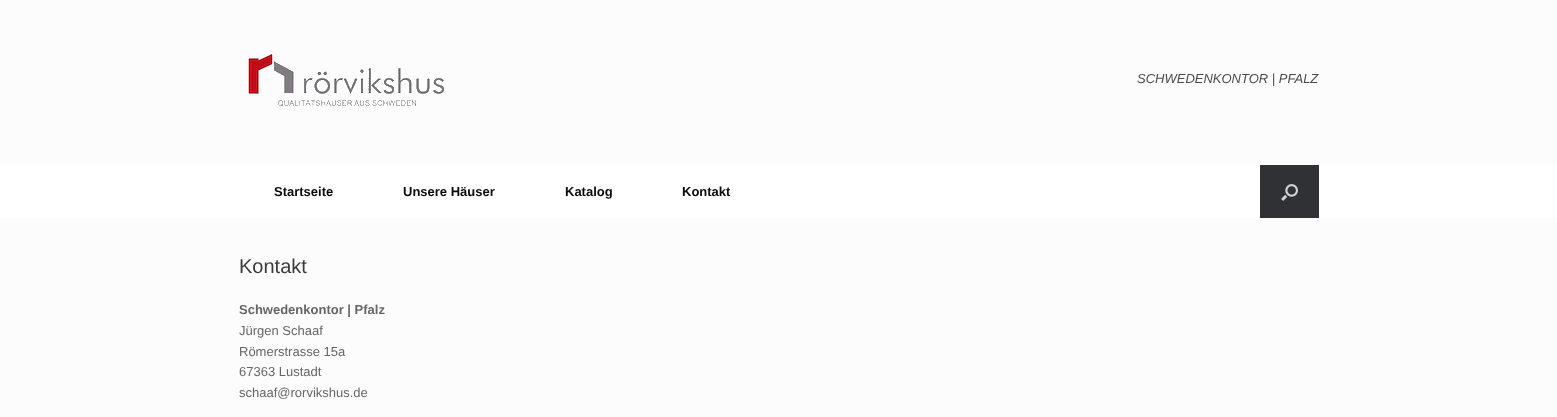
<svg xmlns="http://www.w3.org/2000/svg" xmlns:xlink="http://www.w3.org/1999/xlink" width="1557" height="417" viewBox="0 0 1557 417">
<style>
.cls-1{font:italic 13px Liberation Sans;fill:#4b4b4b}
.cls-2{font:bold 13px Liberation Sans;fill:#0a0a0a}
.cls-3{font:20px Liberation Sans;fill:#3b3b3b}
.cls-4{font:bold 13px Liberation Sans;fill:#666666}
.cls-5{font:13px Liberation Sans;fill:#666666}
</style>
<rect width="100%" height="100%" fill="#fcfcfc"/>
<image xlink:href="image0.png" x="248" y="54" width="196" height="52"/>
<rect fill="#ffffff" x="0" y="165" width="1557" height="53"/>
<rect fill="#303134" x="1260" y="165" width="59" height="53"/>
<image xlink:href="image1.png" x="1281" y="184" width="17" height="17"/>
<text class="cls-1" x="1137" y="83">SCHWEDENKONTOR | PFALZ</text>
<text class="cls-2" x="274" y="196">Startseite</text>
<text class="cls-2" x="403" y="196">Unsere Häuser</text>
<text class="cls-2" x="565" y="196">Katalog</text>
<text class="cls-2" x="682" y="196">Kontakt</text>
<text class="cls-3" x="239" y="273">Kontakt</text>
<text class="cls-4" x="239" y="314">Schwedenkontor | Pfalz</text>
<text class="cls-5"><tspan x="239" y="335">Jürgen Schaaf</tspan><tspan x="239" y="356">Römerstrasse 15a</tspan><tspan x="239" y="376">67363 Lustadt</tspan><tspan x="239" y="397">schaaf@rorvikshus.de</tspan></text>
</svg>
